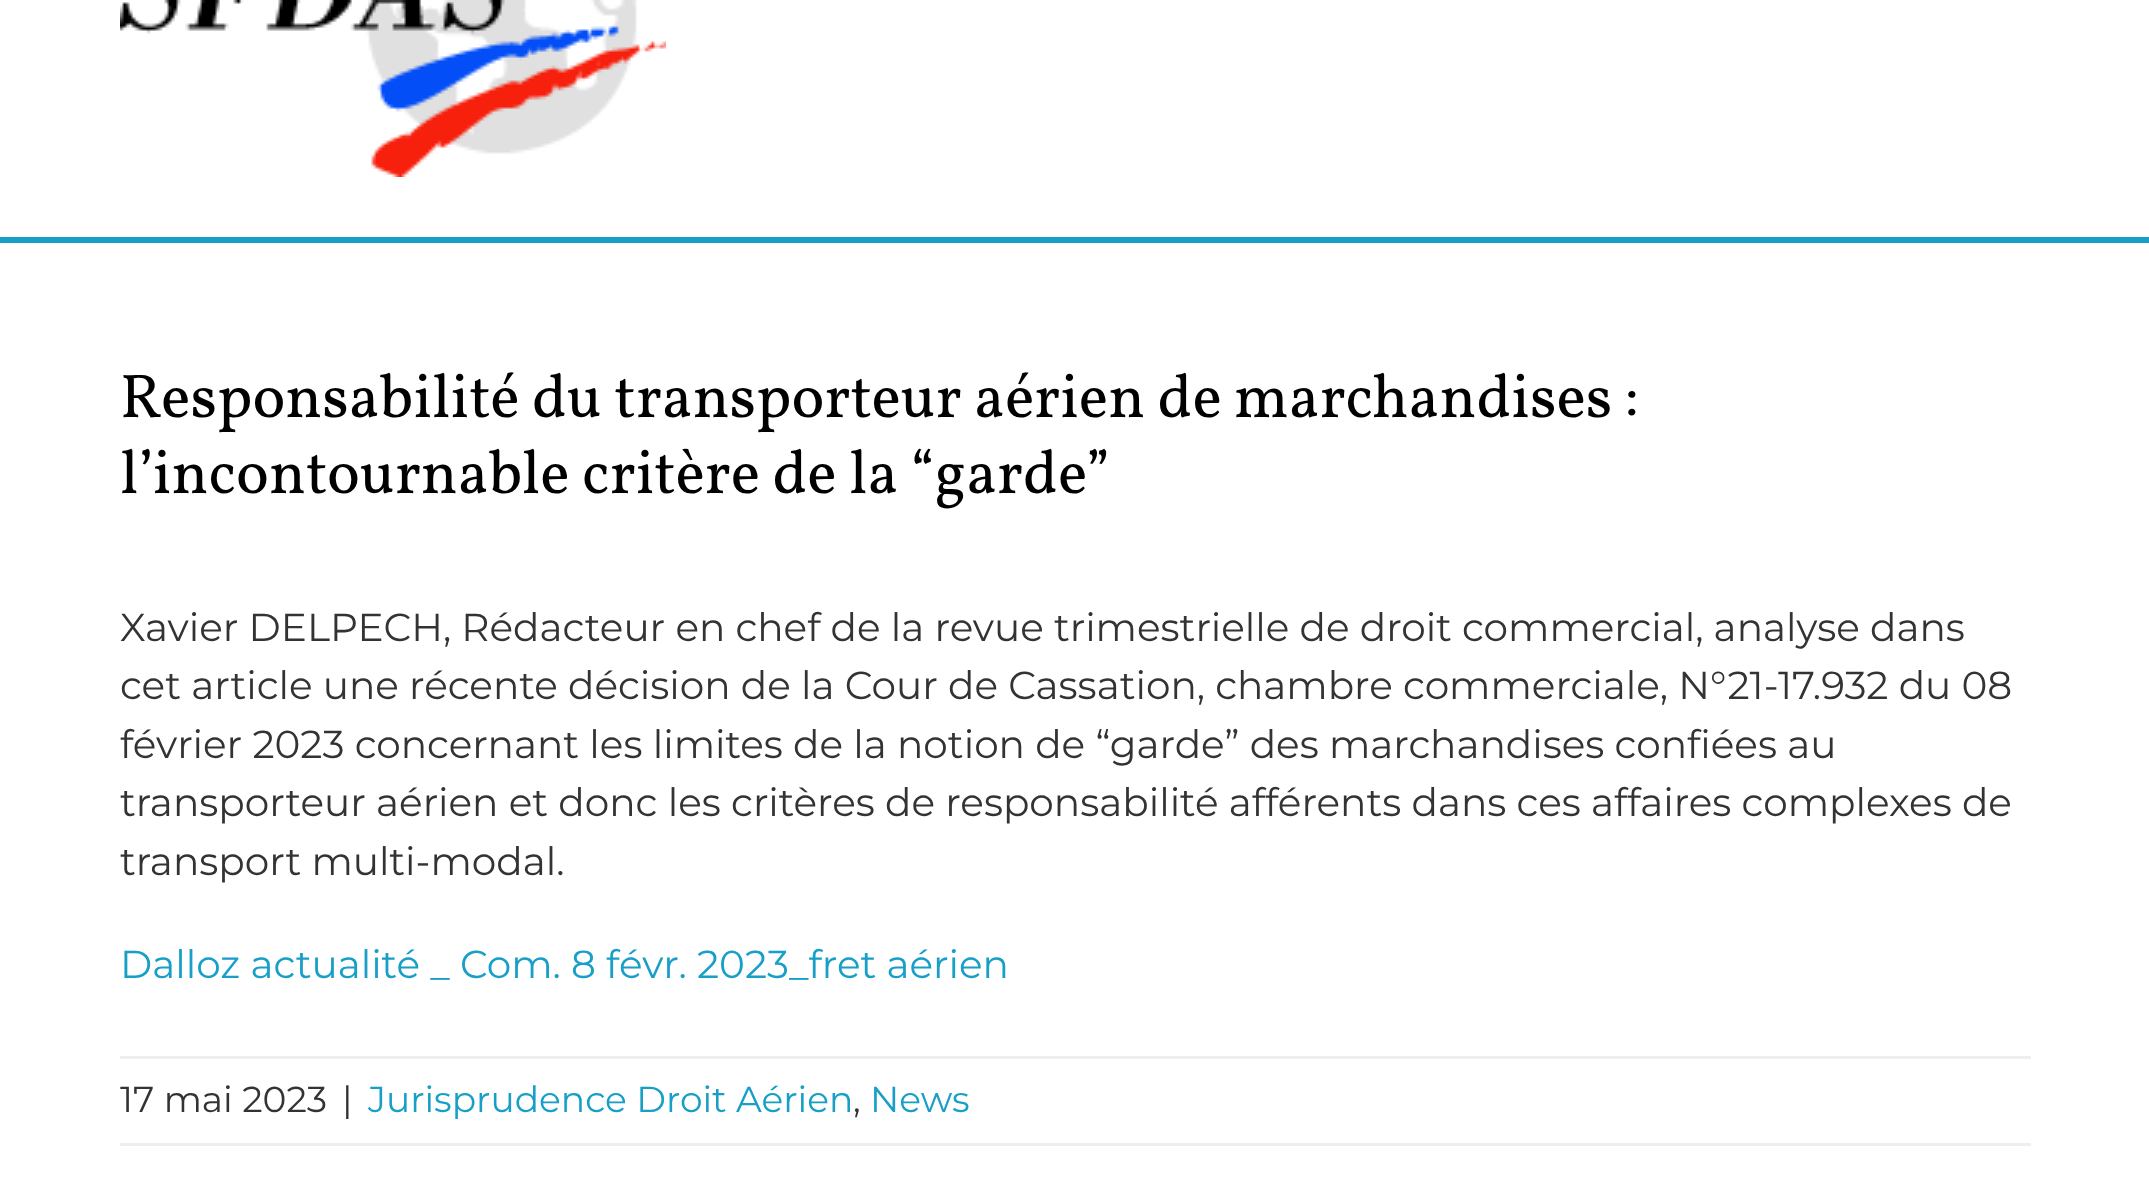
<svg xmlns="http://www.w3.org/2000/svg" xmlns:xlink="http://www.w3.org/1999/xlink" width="2149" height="1194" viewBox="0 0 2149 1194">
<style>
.cls-1{font:61.9px Vollkorn;fill:#000000}
.cls-2{font:100 39px Montserrat;fill:#333333}
.cls-3{font:100 39px Montserrat;fill:#189fc8}
.cls-4{font:100 36px Montserrat;fill:#333333}
.cls-5{font:100 36px Montserrat;fill:#189fc8}
</style>
<rect width="100%" height="100%" fill="#ffffff"/>
<rect fill="#189fc8" x="0" y="237" width="2149" height="6"/>
<image xlink:href="image0.png" x="120" y="0" width="546" height="177"/>
<rect fill="#eeeeee" x="120" y="1056" width="1911" height="3"/>
<rect fill="#eeeeee" x="120" y="1143" width="1911" height="3"/>
<text class="cls-1"><tspan x="120" y="417">Responsabilité du transporteur aérien de marchandises :</tspan><tspan x="120" y="493">l’incontournable critère de la “garde”</tspan></text>
<text class="cls-2"><tspan x="120" y="641">Xavier DELPECH, Rédacteur en chef de la revue trimestrielle de droit commercial, analyse dans</tspan><tspan x="120" y="699">cet article une récente décision de la Cour de Cassation, chambre commerciale, N°21-17.932 du 08</tspan><tspan x="120" y="758">février 2023 concernant les limites de la notion de “garde” des marchandises confiées au</tspan><tspan x="120" y="816">transporteur aérien et donc les critères de responsabilité afférents dans ces affaires complexes de</tspan><tspan x="120" y="875">transport multi-modal.</tspan></text>
<text class="cls-3" x="120" y="978">Dalloz actualité _ Com. 8 févr. 2023_fret aérien</text>
<text class="cls-4" x="120" y="1112">17 mai 2023</text>
<text class="cls-4" x="342" y="1112">|</text>
<text class="cls-5" x="368" y="1112">Jurisprudence Droit Aérien</text>
<text class="cls-4" x="853" y="1112">,</text>
<text class="cls-5" x="870" y="1112">News</text>
</svg>
